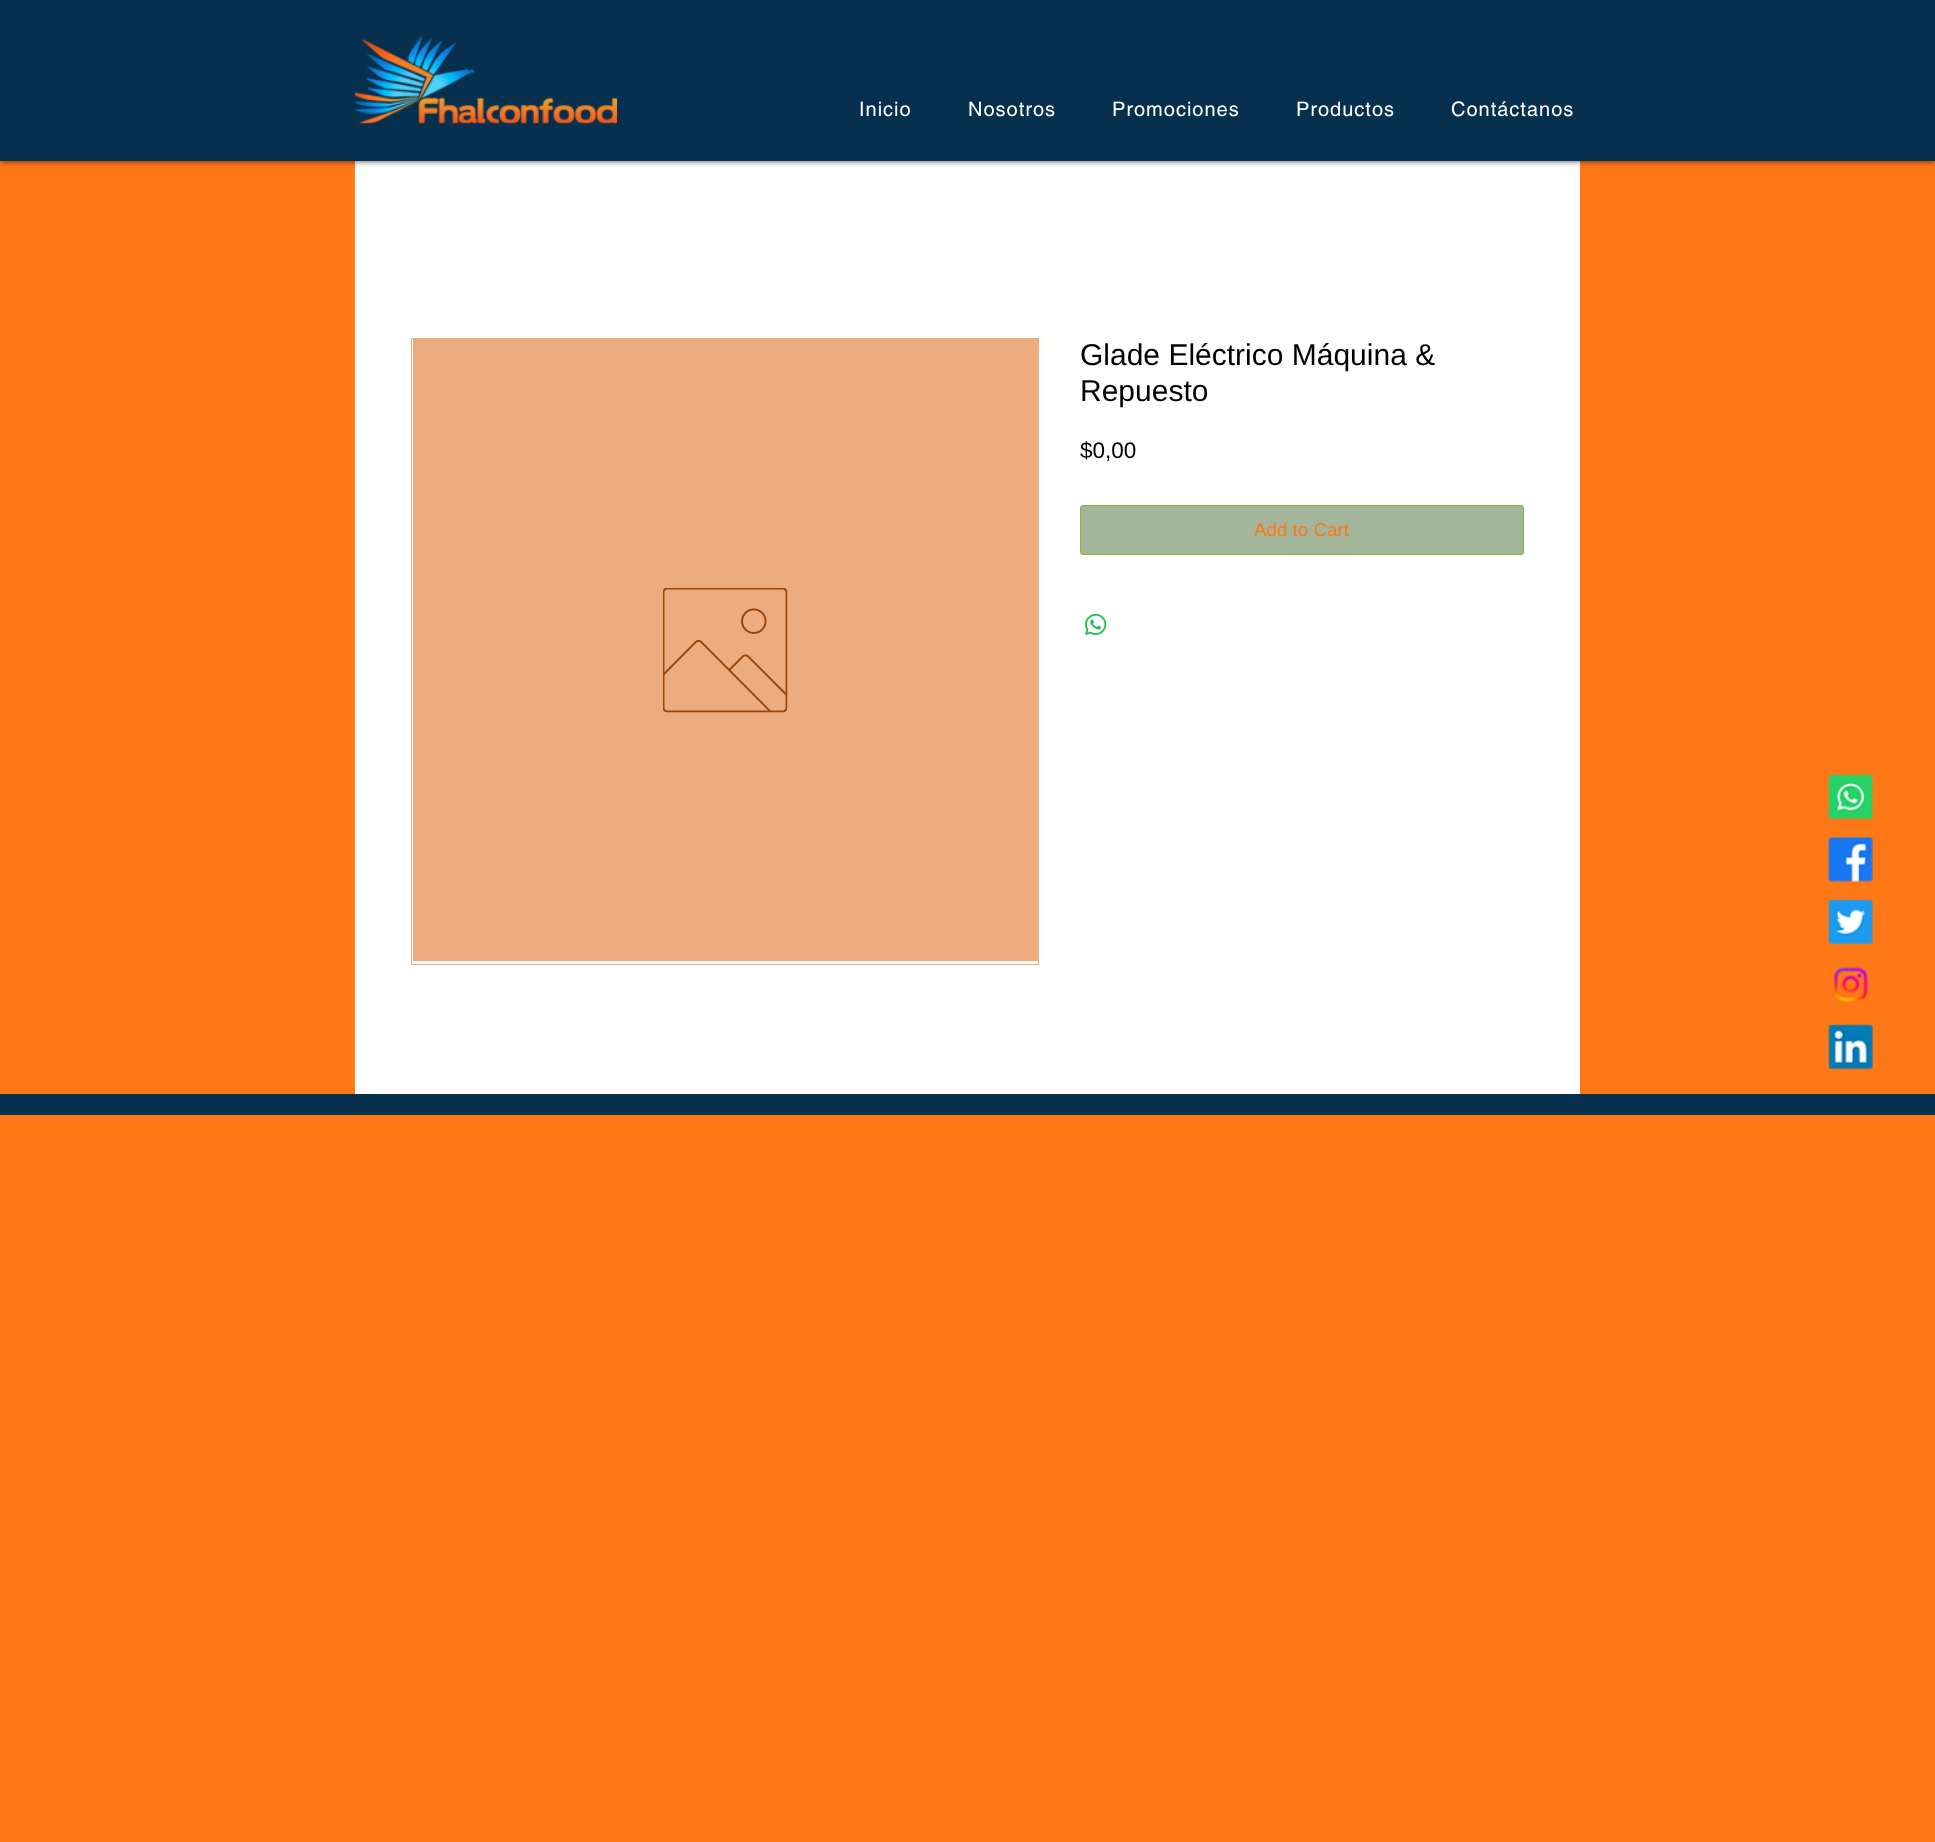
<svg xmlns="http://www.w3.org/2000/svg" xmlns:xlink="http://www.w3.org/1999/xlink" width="1935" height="1842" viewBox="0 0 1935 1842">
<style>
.cls-1{font:20px helvetica;letter-spacing:1px;fill:#ffffff}
.cls-2{font:30px Liberation Sans;fill:#000000}
.cls-3{font:22.5px Liberation Sans;fill:#000000}
.cls-4{font:18.75px Liberation Sans;fill:#ff7817}
</style>
<rect width="100%" height="100%" fill="#ff7817"/>
<rect fill="#ffffff" x="355" y="161" width="1225" height="933"/>
<rect fill="#000000" fill-opacity="0.7" filter="blur(3px)" x="0" y="0" width="1935" height="161"/>
<rect fill="#07304f" x="0" y="0" width="1935" height="161"/>
<image xlink:href="image0.png" x="355" y="36" width="263" height="88"/>
<rect fill="none" stroke="#ecac7d" x="411.5" y="338.5" width="627" height="626"/>
<rect fill="#ecac7d" x="413" y="339" width="625" height="622"/>
<image xlink:href="image1.png" x="663" y="588" width="125" height="125"/>
<rect fill="#a3b59a" stroke="#86b638" x="1080.5" y="505.5" width="443" height="49" rx="2"/>
<image xlink:href="image2.png" x="1085" y="613" width="22" height="23"/>
<image xlink:href="image3.png" x="1828" y="774" width="45" height="45"/>
<image xlink:href="image4.png" x="1828" y="836" width="45" height="46"/>
<image xlink:href="image5.png" x="1828" y="899" width="45" height="45"/>
<image xlink:href="image6.png" x="1833" y="966" width="35" height="36"/>
<image xlink:href="image7.png" x="1828" y="1024" width="45" height="45"/>
<rect fill="#07304f" x="0" y="1094" width="1935" height="21"/>
<text class="cls-1" x="859" y="116">Inicio</text>
<text class="cls-1" x="968" y="116">Nosotros</text>
<text class="cls-1" x="1112" y="116">Promociones</text>
<text class="cls-1" x="1296" y="116">Productos</text>
<text class="cls-1" x="1451" y="116">Contáctanos</text>
<text class="cls-2"><tspan x="1080" y="365">Glade Eléctrico Máquina &amp;</tspan><tspan x="1080" y="401">Repuesto</tspan></text>
<text class="cls-3" x="1080" y="458">$0,00</text>
<text class="cls-4" x="1254" y="536">Add to Cart</text>
</svg>
